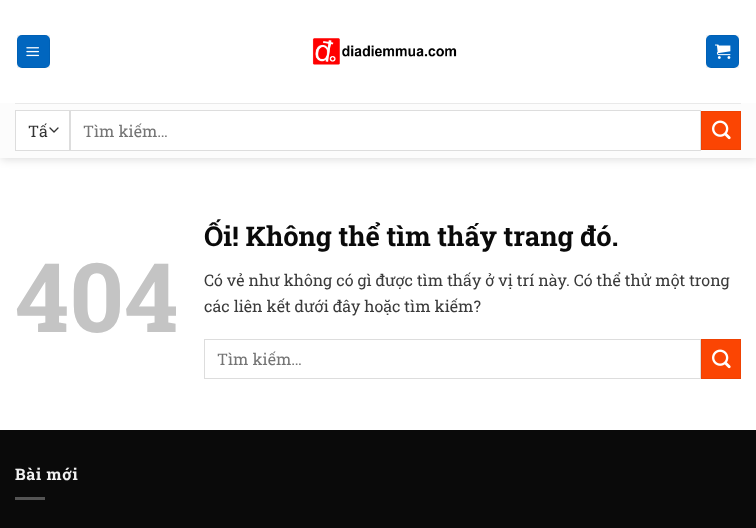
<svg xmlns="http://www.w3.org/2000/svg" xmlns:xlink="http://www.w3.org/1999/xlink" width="756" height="528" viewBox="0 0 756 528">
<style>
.cls-1{font:16px Roboto Slab;fill:#333333}
.cls-2{font:16px Roboto Slab;fill:#757575}
.cls-3{font:bold 96px Roboto Slab;fill:#c4c4c4}
.cls-4{font:bold 27.25px Roboto Slab;fill:#0a0a0a}
.cls-5{font:16px Roboto Slab;fill:#3a3a3a}
.cls-6{font:bold 16px Roboto Slab;letter-spacing:0.75px;fill:#f1f1f1}
</style>
<rect width="100%" height="100%" fill="#ffffff"/>
<rect fill="#000000" fill-opacity="0.15" filter="blur(5px)" x="1" y="1" width="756" height="158"/>
<rect fill="#ffffff" x="0" y="0" width="756" height="103"/>
<rect fill="#0166bf" x="17" y="35" width="33" height="33" rx="5"/>
<rect fill="none" stroke="#000000" stroke-opacity="0.05" x="17.5" y="35.5" width="32" height="32"/>
<image xlink:href="image0.png" x="26" y="47" width="13" height="10"/>
<image xlink:href="image1.png" x="312" y="38" width="145" height="27"/>
<rect fill="#0166bf" x="706" y="35" width="33" height="33" rx="5"/>
<rect fill="none" stroke="#000000" stroke-opacity="0.05" x="706.5" y="35.5" width="32" height="32"/>
<image xlink:href="image2.png" x="715" y="44" width="16" height="15"/>
<rect fill="#fcfcfc" x="0" y="103" width="756" height="55"/>
<rect fill="#e9e9e9" x="15" y="103" width="726" height="1"/>
<rect fill="#ffffff" x="16" y="111" width="53" height="39"/>
<path fill="none" stroke="#333333" stroke-width="1.3" stroke-linecap="round" stroke-linejoin="round" d="M50 128L54 132L58 128"/>
<rect fill="none" stroke="#dddddd" x="15.5" y="110.5" width="54" height="40"/>
<rect fill="#ffffff" stroke="#dddddd" x="70.5" y="110.5" width="630" height="40"/>
<rect fill="#fb4503" stroke="#ee4203" x="701.5" y="111.5" width="39" height="38"/>
<image xlink:href="image3.png" x="712" y="120" width="19" height="20"/>
<rect fill="none" stroke="#dddddd" x="204.5" y="339.5" width="496" height="39"/>
<rect fill="#fb4503" stroke="#ee4203" x="701.5" y="339.5" width="39" height="39"/>
<image xlink:href="image3.png" x="712" y="349" width="19" height="20"/>
<rect fill="#0a0a0a" x="0" y="430" width="756" height="98"/>
<rect fill="#545454" x="15" y="497" width="30" height="3"/>
<text class="cls-1" x="28" y="137">Tấ</text>
<text class="cls-2" x="83" y="137">Tìm kiếm…</text>
<text class="cls-3" x="15" y="332">404</text>
<text class="cls-4" x="204" y="246">Ối! Không thể tìm thấy trang đó.</text>
<text class="cls-5"><tspan x="204" y="286">Có vẻ như không có gì được tìm thấy ở vị trí này. Có thể thử một trong</tspan><tspan x="204" y="312">các liên kết dưới đây hoặc tìm kiếm?</tspan></text>
<text class="cls-2" x="217" y="365">Tìm kiếm…</text>
<text class="cls-6" x="15" y="480">Bài mới</text>
</svg>
